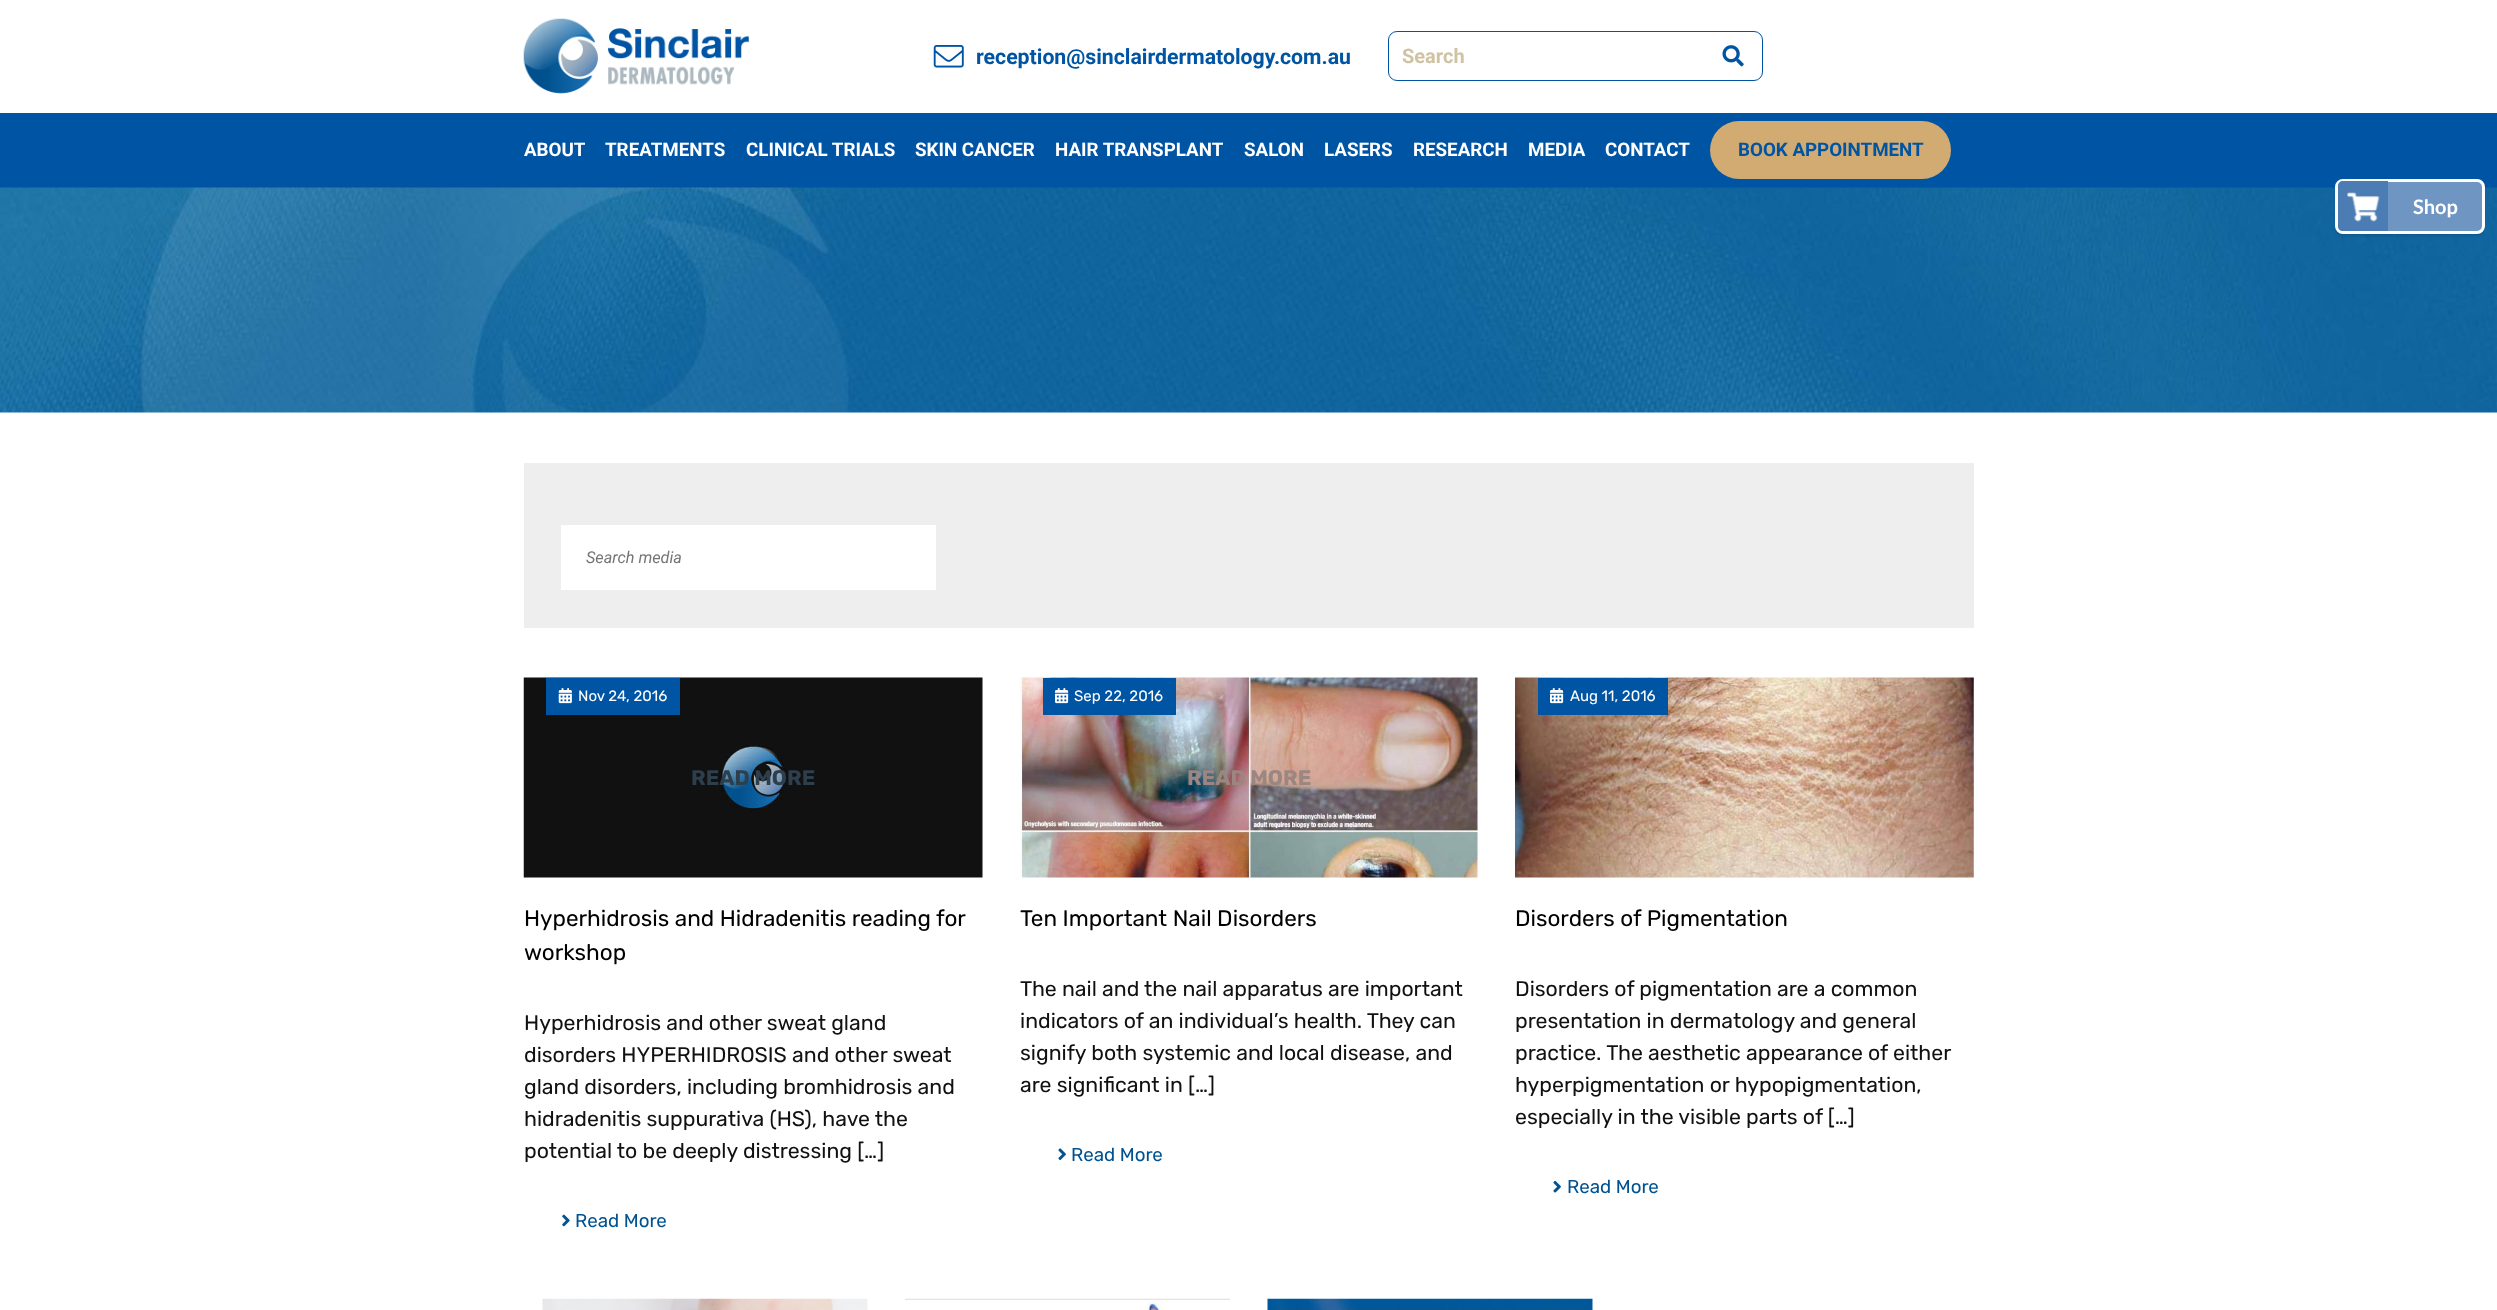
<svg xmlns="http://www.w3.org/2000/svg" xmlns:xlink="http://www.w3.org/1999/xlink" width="2497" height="1310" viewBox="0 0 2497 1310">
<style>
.cls-1{font:bold 21.25px Roboto;fill:#0054a4}
.cls-2{font:bold 20px Roboto;fill:#cfc3a4}
.cls-3{font:bold 18.75px Roboto;fill:#ffffff}
.cls-4{font:bold 18.75px Roboto;fill:#0054a4}
.cls-5{font:bold 20px Lato;fill:#ffffff}
.cls-6{font:italic 16.25px Roboto;fill:#757575}
.cls-7{font:15px Rubik;fill:#ffffff}
.cls-8{font:bold 21.25px Rubik;fill:#2d3e4c}
.cls-9{font:22.5px Rubik;fill:#000000}
.cls-10{font:21.25px Rubik;fill:#111111}
.cls-11{font:18.75px Rubik;fill:#015290}
.cls-12{font:bold 21.25px Rubik;fill:#9b8682}
</style>
<rect width="100%" height="100%" fill="#ffffff"/>
<image xlink:href="image0.png" x="523" y="18" width="226" height="76"/>
<image xlink:href="image1.png" x="933" y="45" width="31" height="23"/>
<rect fill="none" stroke="#0054a4" x="1388.5" y="31.5" width="374" height="49" rx="8.5"/>
<image xlink:href="image2.png" x="1722" y="45" width="22" height="22"/>
<rect fill="#0054a4" x="0" y="113" width="2497" height="75"/>
<rect fill="#d2ab72" x="1710" y="121" width="241" height="58" rx="29"/>
<image xlink:href="image3.png" x="0" y="187" width="2497" height="226"/>
<rect fill="#000000" fill-opacity="0.1" filter="blur(1px)" x="2335" y="181" width="150" height="55" rx="8"/>
<rect fill="#6f96c3" stroke="#ffffff" stroke-width="3" x="2336.5" y="180.5" width="147" height="52" rx="6.5"/>
<path fill="#4b7cb4" d="M2343 181H2388V231H2343C2340 231 2338 229 2338 226V186C2338 183 2340 181 2343 181Z"/>
<image xlink:href="image4.png" x="2347" y="192" width="33" height="30"/>
<rect fill="#eeeeee" x="524" y="463" width="1450" height="165"/>
<rect fill="#ffffff" x="561" y="525" width="375" height="65"/>
<image xlink:href="image6.png" x="523" y="677" width="460" height="201"/>
<rect fill="#0054a4" x="546" y="678" width="134" height="37"/>
<image xlink:href="image5.png" x="558" y="688" width="14" height="16"/>
<image xlink:href="image7.png" x="562" y="1214" width="8" height="13"/>
<image xlink:href="image9.png" x="1020" y="677" width="458" height="201"/>
<rect fill="#0054a4" x="1043" y="678" width="133" height="37"/>
<image xlink:href="image8.png" x="1055" y="688" width="14" height="16"/>
<image xlink:href="image10.png" x="1058" y="1148" width="8" height="12"/>
<image xlink:href="image11.png" x="1515" y="677" width="459" height="201"/>
<rect fill="#0054a4" x="1538" y="678" width="130" height="37"/>
<image xlink:href="image8.png" x="1550" y="688" width="14" height="16"/>
<image xlink:href="image12.png" x="1553" y="1180" width="8" height="13"/>
<image xlink:href="image13.png" x="542" y="1298" width="326" height="12"/>
<image xlink:href="image14.png" x="905" y="1298" width="325" height="12"/>
<image xlink:href="image15.png" x="1267" y="1298" width="326" height="12"/>
<text class="cls-1" x="976" y="64">reception@sinclairdermatology.com.au</text>
<text class="cls-2" x="1402" y="63">Search</text>
<text class="cls-3" x="524" y="156">ABOUT</text>
<text class="cls-3" x="605" y="156">TREATMENTS</text>
<text class="cls-3" x="746" y="156">CLINICAL TRIALS</text>
<text class="cls-3" x="915" y="156">SKIN CANCER</text>
<text class="cls-3" x="1055" y="156">HAIR TRANSPLANT</text>
<text class="cls-3" x="1244" y="156">SALON</text>
<text class="cls-3" x="1324" y="156">LASERS</text>
<text class="cls-3" x="1413" y="156">RESEARCH</text>
<text class="cls-3" x="1528" y="156">MEDIA</text>
<text class="cls-3" x="1605" y="156">CONTACT</text>
<text class="cls-4" x="1738" y="156">BOOK APPOINTMENT</text>
<text class="cls-5" x="2413" y="214">Shop</text>
<text class="cls-6" x="586" y="563">Search media</text>
<text class="cls-7" x="578" y="701">Nov 24, 2016</text>
<text class="cls-8" x="691" y="785">READ MORE</text>
<text class="cls-9"><tspan x="524" y="926">Hyperhidrosis and Hidradenitis reading for</tspan><tspan x="524" y="960">workshop</tspan></text>
<text class="cls-10"><tspan x="524" y="1030">Hyperhidrosis and other sweat gland</tspan><tspan x="524" y="1062">disorders HYPERHIDROSIS and other sweat</tspan><tspan x="524" y="1094">gland disorders, including bromhidrosis and</tspan><tspan x="524" y="1126">hidradenitis suppurativa (HS), have the</tspan><tspan x="524" y="1158">potential to be deeply distressing […]</tspan></text>
<text class="cls-11" x="575" y="1227">Read More</text>
<text class="cls-7" x="1074" y="701">Sep 22, 2016</text>
<text class="cls-12" x="1187" y="785">READ MORE</text>
<text class="cls-9" x="1020" y="926">Ten Important Nail Disorders</text>
<text class="cls-10"><tspan x="1020" y="996">The nail and the nail apparatus are important</tspan><tspan x="1020" y="1028">indicators of an individual’s health. They can</tspan><tspan x="1020" y="1060">signify both systemic and local disease, and</tspan><tspan x="1020" y="1092">are significant in […]</tspan></text>
<text class="cls-11" x="1071" y="1161">Read More</text>
<text class="cls-7" x="1570" y="701">Aug 11, 2016</text>
<text class="cls-9" x="1515" y="926">Disorders of Pigmentation</text>
<text class="cls-10"><tspan x="1515" y="996">Disorders of pigmentation are a common</tspan><tspan x="1515" y="1028">presentation in dermatology and general</tspan><tspan x="1515" y="1060">practice. The aesthetic appearance of either</tspan><tspan x="1515" y="1092">hyperpigmentation or hypopigmentation,</tspan><tspan x="1515" y="1124">especially in the visible parts of […]</tspan></text>
<text class="cls-11" x="1567" y="1193">Read More</text>
</svg>
